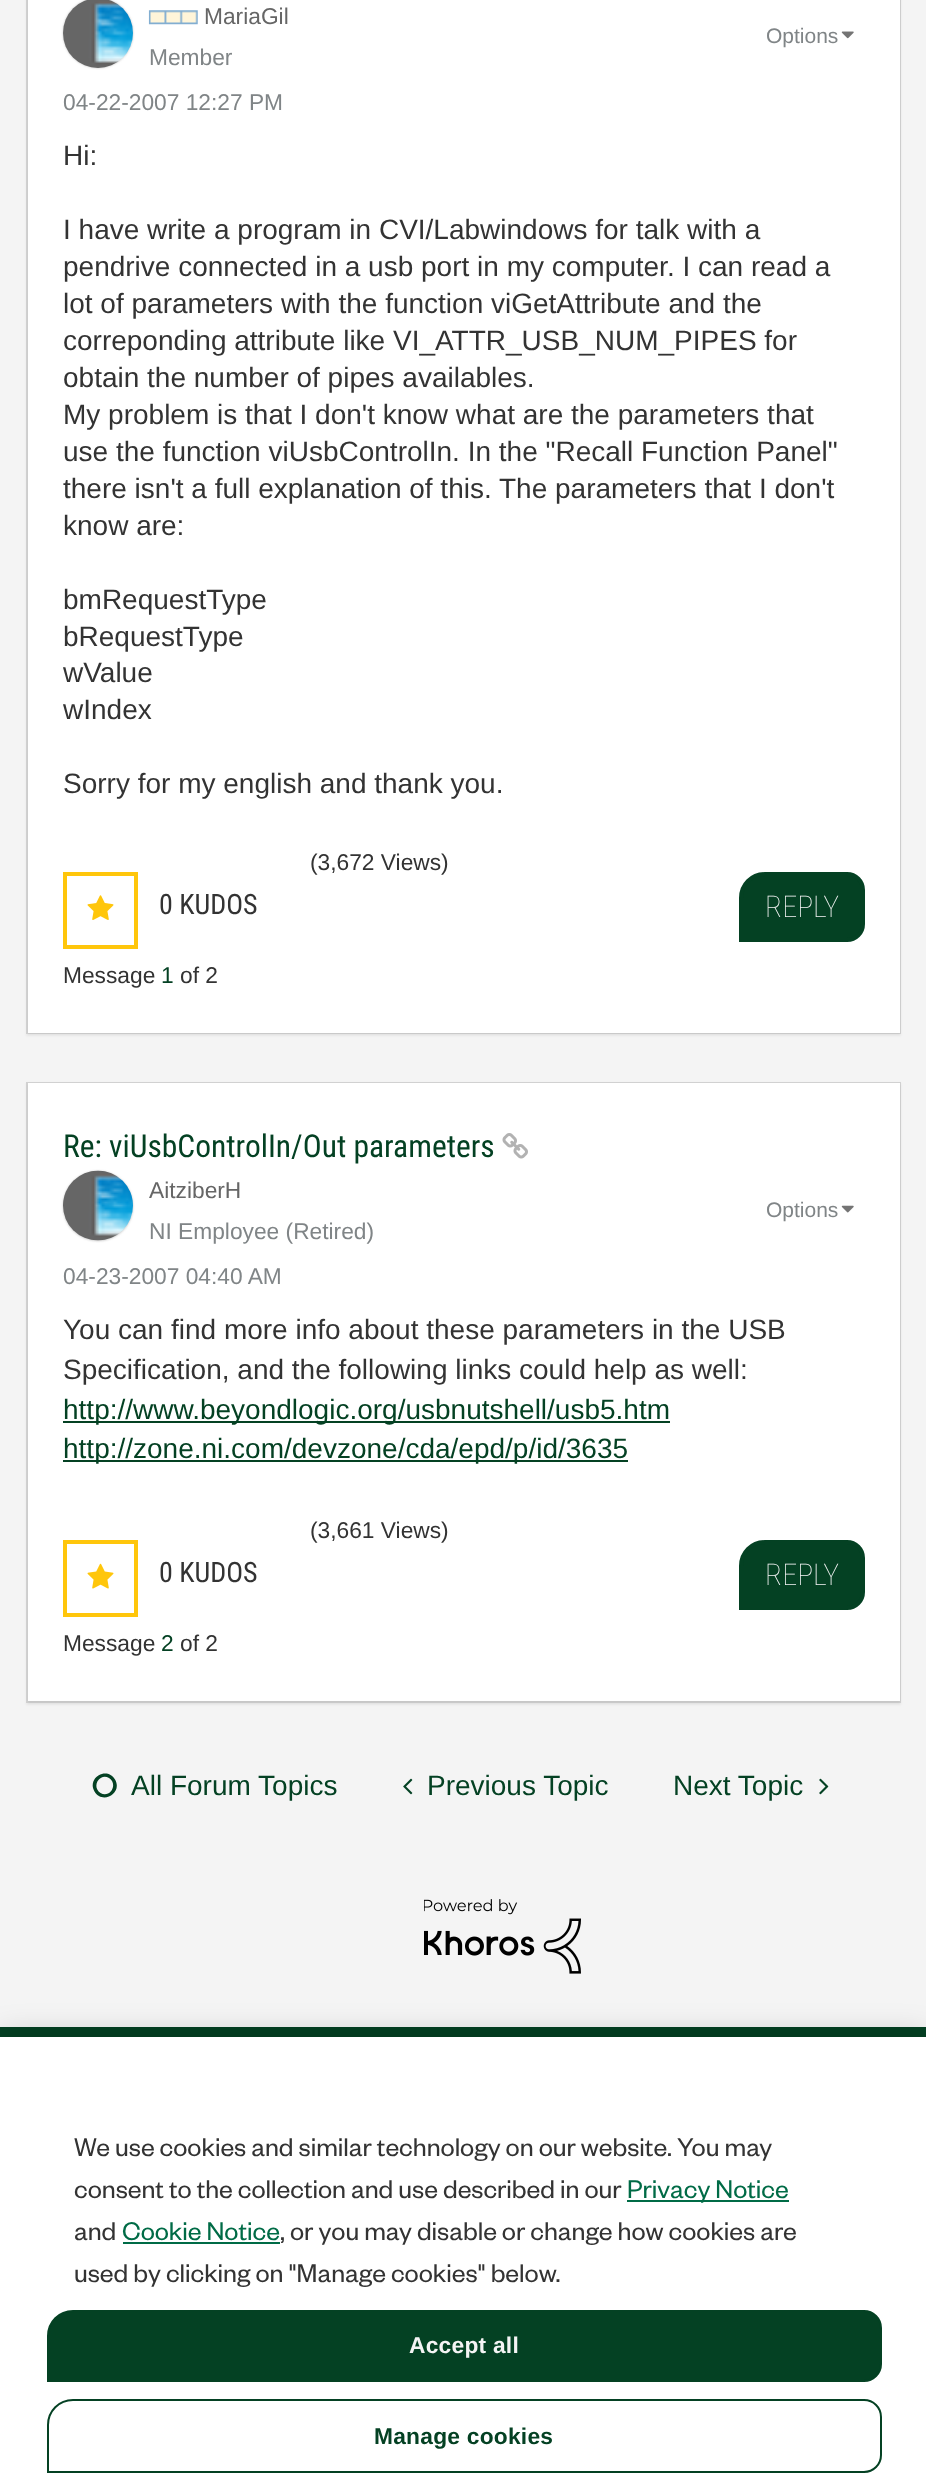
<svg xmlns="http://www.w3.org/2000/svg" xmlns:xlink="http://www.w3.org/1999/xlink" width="926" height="2490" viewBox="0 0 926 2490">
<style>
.cls-1{font:22.75px Liberation Sans;fill:#666666}
.cls-2{font:22.75px Liberation Sans;fill:#808587}
.cls-3{font:21px Liberation Sans;fill:#808587}
.cls-4{font:28px Liberation Sans;fill:#333333}
.cls-5{font:22.75px Liberation Sans;fill:#333333}
.cls-6{font:28px Roboto Condensed;fill:#333333}
.cls-7{font:22.75px Liberation Sans;fill:#044123}
.cls-8{font:100 30px Roboto Condensed;fill:#f4f4f4}
.cls-9{font:31.5px Roboto Condensed;fill:#044123}
.cls-10{font:28px Liberation Sans;fill:#044123}
.cls-11{font:28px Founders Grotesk;fill:#333333}
.cls-12{font:28px Founders Grotesk;fill:#006b46}
.cls-13{font:bold 22.75px Liberation Sans;letter-spacing:0.25px;fill:#f4f4f4}
.cls-14{font:bold 22.75px Liberation Sans;letter-spacing:0.25px;fill:#044123}
</style>
<rect width="100%" height="100%" fill="#f4f4f4"/>
<rect fill="#000000" fill-opacity="0.05" filter="blur(1px)" x="26" y="-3" width="875" height="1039"/>
<rect fill="none" stroke="#d1d1d1" stroke-width="2" x="27" y="-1" width="873" height="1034"/>
<rect fill="#000000" fill-opacity="0.05" filter="blur(1px)" x="28" y="-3" width="872" height="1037"/>
<rect fill="#ffffff" x="28" y="0" width="872" height="1033"/>
<rect fill="#c4c4c4" filter="blur(1px)" x="63" y="-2" width="70" height="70" rx="35"/>
<image xlink:href="image0.png" x="63" y="0" width="70" height="68"/>
<image xlink:href="image1.png" x="148" y="10" width="50" height="15"/>
<image xlink:href="image2.png" x="841" y="31" width="13" height="8"/>
<rect fill="none" stroke="#ffc60b" stroke-width="4" x="65" y="874" width="71" height="73"/>
<image xlink:href="image3.png" x="87" y="895" width="27" height="25"/>
<path fill="#044123" stroke="#044123" stroke-width="4" d="M765 874H847C856 874 863 881 863 890V924C863 933 856 940 847 940H741V898C741 884.5 751.5 874 765 874Z"/>
<rect fill="#000000" fill-opacity="0.05" filter="blur(1px)" x="26" y="1083" width="875" height="622"/>
<rect fill="none" stroke="#d1d1d1" stroke-width="2" x="27" y="1083" width="873" height="619"/>
<rect fill="#000000" fill-opacity="0.05" filter="blur(1px)" x="28" y="1085" width="872" height="618"/>
<rect fill="#ffffff" x="28" y="1083" width="872" height="618"/>
<image xlink:href="image4.png" x="502" y="1133" width="26" height="26"/>
<rect fill="#c4c4c4" filter="blur(1px)" x="63" y="1171" width="70" height="70" rx="35"/>
<image xlink:href="image5.png" x="63" y="1170" width="70" height="71"/>
<image xlink:href="image6.png" x="841" y="1205" width="13" height="8"/>
<rect fill="#044123" x="63" y="1421" width="607" height="2"/>
<rect fill="#044123" x="63" y="1460" width="565" height="2"/>
<rect fill="none" stroke="#ffc60b" stroke-width="4" x="65" y="1542" width="71" height="73"/>
<image xlink:href="image7.png" x="87" y="1563" width="27" height="26"/>
<path fill="#044123" stroke="#044123" stroke-width="4" d="M765 1542H847C856 1542 863 1549 863 1558V1592C863 1601 856 1608 847 1608H741V1566C741 1552.5 751.5 1542 765 1542Z"/>
<path fill="#044123" d="M109 1778C99.5 1772.5 91 1787 100.5 1793C110 1798.5 118.5 1784 109 1778ZM115 1779.5C123 1793 102.5 1805 94.5 1791.5C86.5 1778 107 1766 115 1779.5Z"/>
<image xlink:href="image8.png" x="403" y="1778" width="10" height="17"/>
<image xlink:href="image9.png" x="819" y="1778" width="10" height="17"/>
<image xlink:href="image10.png" x="424" y="1899" width="157" height="75"/>
<rect fill="#044123" x="0" y="2027" width="926" height="10"/>
<rect fill="#000000" fill-opacity="0.2" filter="blur(16px)" x="0" y="2037" width="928" height="453"/>
<rect fill="#ffffff" x="0" y="2037" width="926" height="453"/>
<rect fill="#006b46" x="627" y="2200" width="162" height="2"/>
<rect fill="#006b46" x="123" y="2242" width="157" height="2"/>
<path fill="#044123" stroke="#044123" stroke-width="2" d="M73 2311H864C873.5 2311 881 2318.5 881 2328V2364C881 2373.5 873.5 2381 864 2381H48V2336C48 2322 59 2311 73 2311Z"/>
<path fill="none" stroke="#044123" stroke-width="2" d="M73 2400H864C873.5 2400 881 2407.5 881 2417V2455C881 2464.5 873.5 2472 864 2472H48V2425C48 2411 59 2400 73 2400Z"/>
<text class="cls-1" x="204" y="24">MariaGil</text>
<text class="cls-2" x="149" y="65">Member</text>
<text class="cls-3" x="766" y="43">Options</text>
<text class="cls-2" x="63" y="110">04-22-2007 12:27 PM</text>
<text class="cls-4" x="63" y="165">Hi:</text>
<text class="cls-4"><tspan x="63" y="239">I have write a program in CVI/Labwindows for talk with a</tspan><tspan x="63" y="276">pendrive connected in a usb port in my computer. I can read a</tspan><tspan x="63" y="313">lot of parameters with the function viGetAttribute and the</tspan><tspan x="63" y="350">correponding attribute like VI_ATTR_USB_NUM_PIPES for</tspan><tspan x="63" y="387">obtain the number of pipes availables.</tspan><tspan x="63" y="424">My problem is that I don't know what are the parameters that</tspan><tspan x="63" y="461">use the function viUsbControlIn. In the "Recall Function Panel"</tspan><tspan x="63" y="498">there isn't a full explanation of this. The parameters that I don't</tspan><tspan x="63" y="535">know are:</tspan></text>
<text class="cls-4"><tspan x="63" y="609">bmRequestType</tspan><tspan x="63" y="646">bRequestType</tspan><tspan x="63" y="682">wValue</tspan><tspan x="63" y="719">wIndex</tspan></text>
<text class="cls-4" x="63" y="793">Sorry for my english and thank you.</text>
<text class="cls-5" x="310" y="870">(3,672 Views)</text>
<text class="cls-6" x="159" y="914">0 KUDOS</text>
<text class="cls-5" x="63" y="983">Message</text>
<text class="cls-7" x="161" y="983">1</text>
<text class="cls-5" x="180" y="983">of 2</text>
<text class="cls-8" x="765" y="917">REPLY</text>
<text class="cls-9" x="63" y="1157">Re: viUsbControlIn/Out parameters</text>
<text class="cls-1" x="149" y="1198">AitziberH</text>
<text class="cls-2" x="149" y="1239">NI Employee (Retired)</text>
<text class="cls-3" x="766" y="1217">Options</text>
<text class="cls-2" x="63" y="1284">04-23-2007 04:40 AM</text>
<text class="cls-4"><tspan x="63" y="1339">You can find more info about these parameters in the USB</tspan><tspan x="63" y="1379">Specification, and the following links could help as well:</tspan></text>
<text class="cls-10"><tspan x="63" y="1419">http://www.beyondlogic.org/usbnutshell/usb5.htm</tspan><tspan x="63" y="1458">http://zone.ni.com/devzone/cda/epd/p/id/3635</tspan></text>
<text class="cls-5" x="310" y="1538">(3,661 Views)</text>
<text class="cls-6" x="159" y="1582">0 KUDOS</text>
<text class="cls-5" x="63" y="1651">Message</text>
<text class="cls-7" x="161" y="1651">2</text>
<text class="cls-5" x="180" y="1651">of 2</text>
<text class="cls-8" x="765" y="1585">REPLY</text>
<text class="cls-10" x="131" y="1795">All Forum Topics</text>
<text class="cls-10" x="427" y="1795">Previous Topic</text>
<text class="cls-10" x="673" y="1795">Next Topic</text>
<text class="cls-11"><tspan x="74" y="2156">We use cookies and similar technology on our website. You may</tspan><tspan x="74" y="2198">consent to the collection and use described in our</tspan></text>
<text class="cls-12" x="627" y="2198">Privacy Notice</text>
<text class="cls-11" x="74" y="2240">and</text>
<text class="cls-12" x="122" y="2240">Cookie Notice</text>
<text class="cls-11" x="280" y="2240">, or you may disable or change how cookies are</text>
<text class="cls-11" x="74" y="2282">used by clicking on "Manage cookies" below.</text>
<text class="cls-13" x="409" y="2353">Accept all</text>
<text class="cls-14" x="374" y="2444">Manage cookies</text>
</svg>
